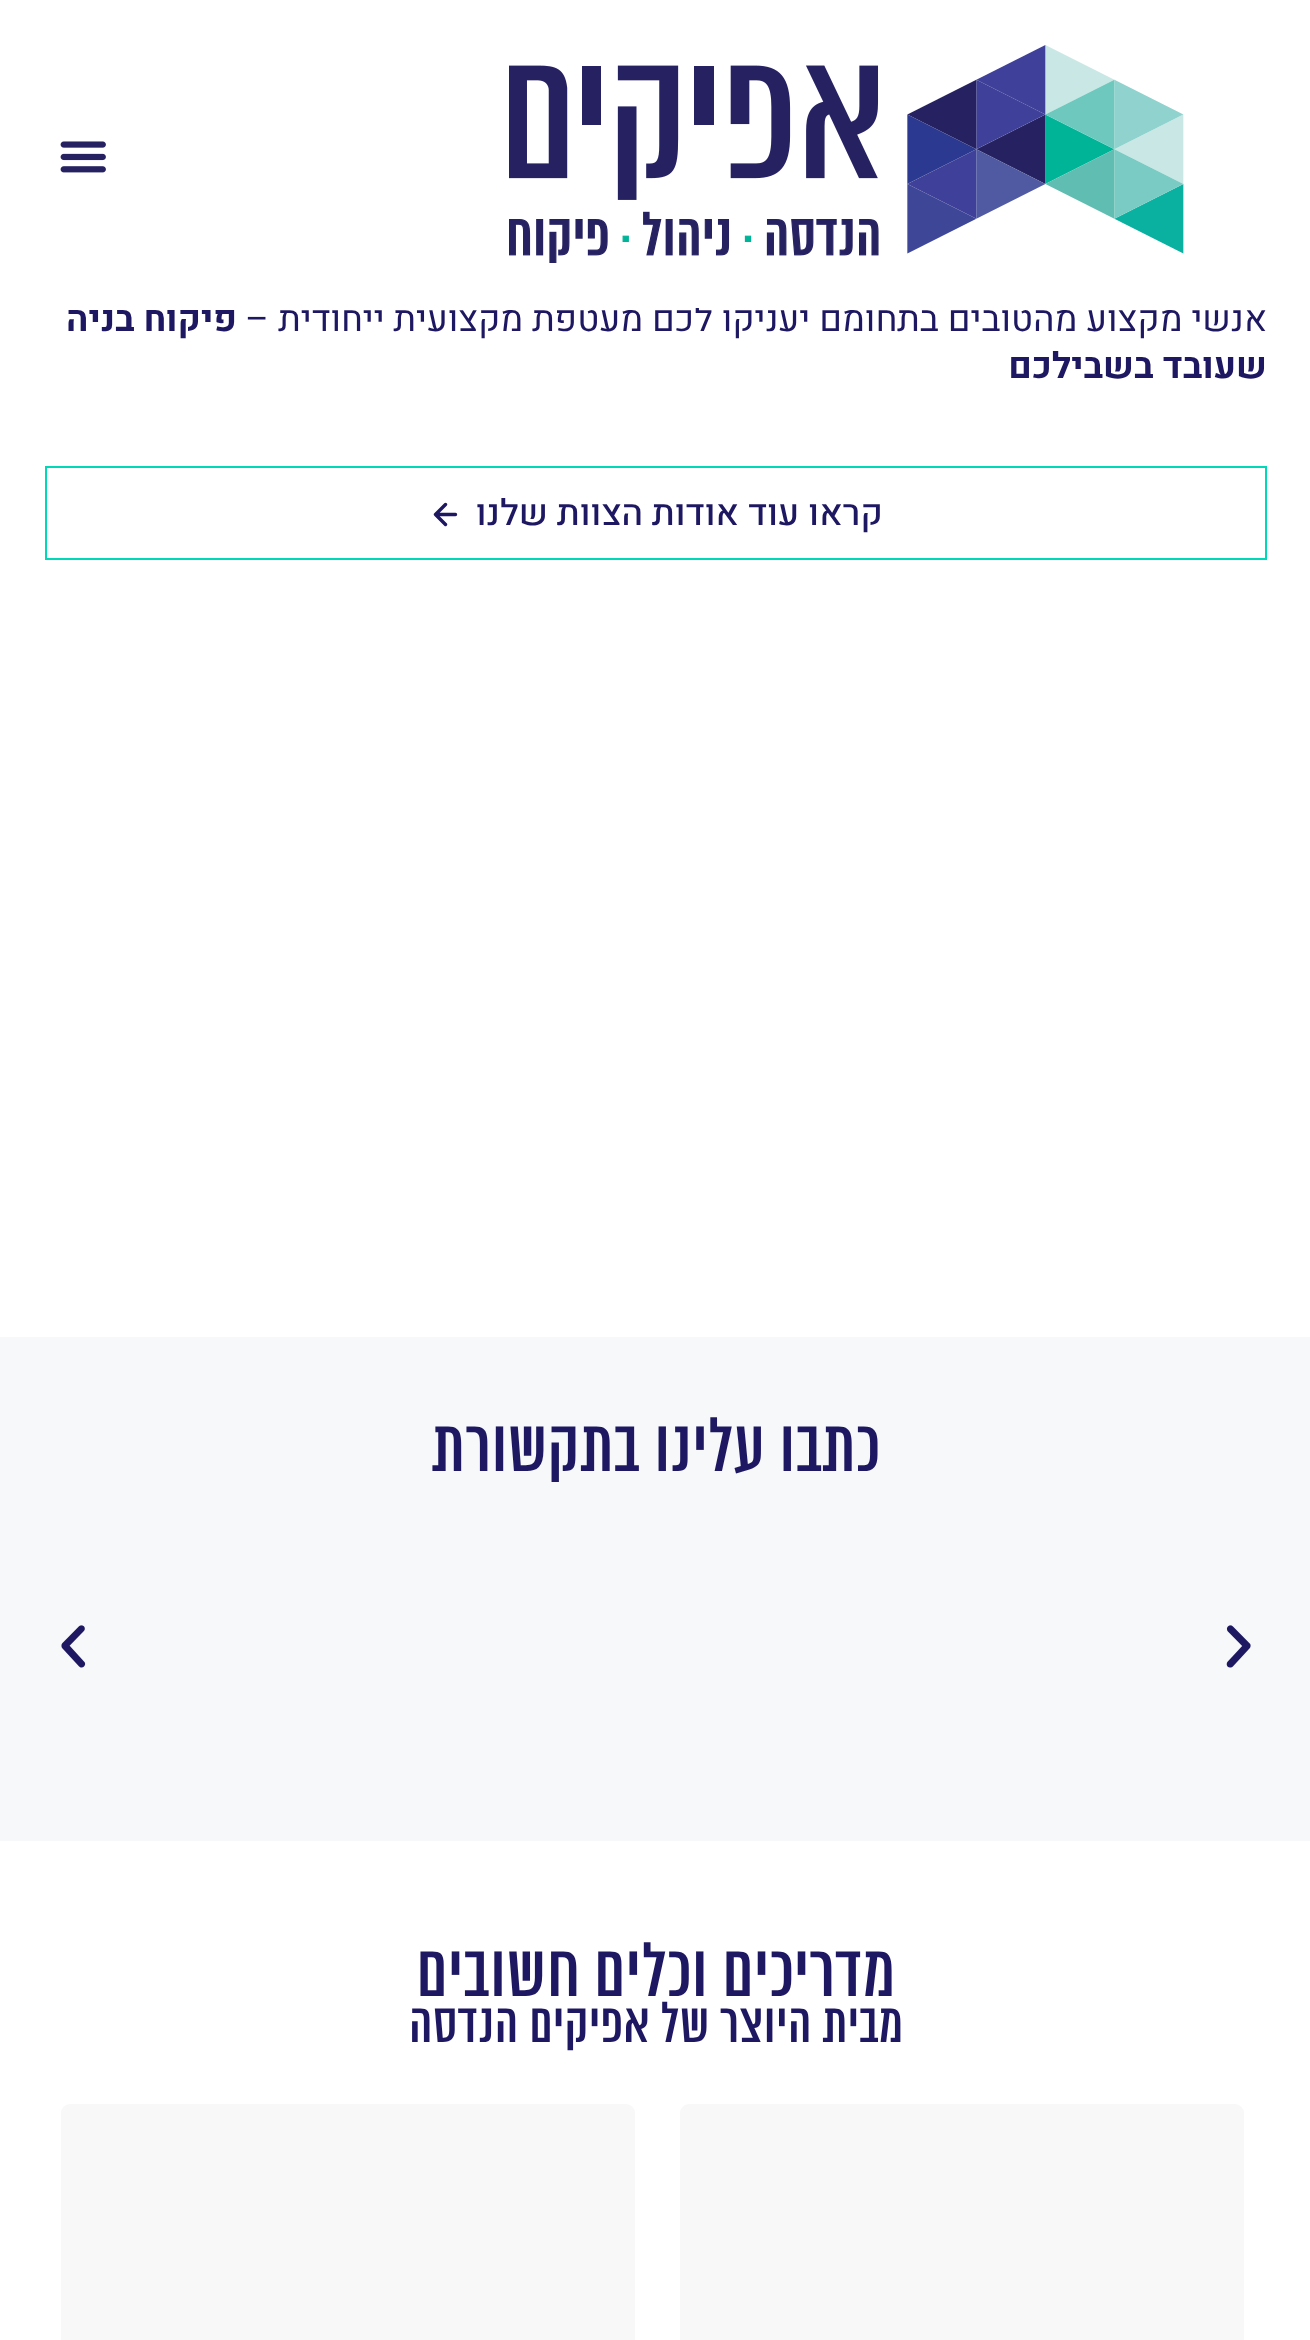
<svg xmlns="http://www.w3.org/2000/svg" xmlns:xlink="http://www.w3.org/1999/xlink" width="1310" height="2340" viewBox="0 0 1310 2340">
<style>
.cls-1{font:36px Heebo;direction:rtl;fill:#1d1861}
.cls-2{font:bold 36px Heebo;direction:rtl;fill:#1d1861}
.cls-3{font:500 36px Heebo;direction:rtl;fill:#1d1861}
.cls-4{font:72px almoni;direction:rtl;fill:#1d1861}
.cls-5{font:54px almoni;direction:rtl;fill:#1d1861}
</style>
<rect width="100%" height="100%" fill="#ffffff"/>
<image xlink:href="image0.png" x="509" y="45" width="675" height="218"/>
<image xlink:href="image1.png" x="60" y="141" width="46" height="32"/>
<rect fill="none" stroke="#00d9b7" stroke-width="2" x="46" y="467" width="1220" height="92"/>
<path fill="none" stroke="#1d1861" stroke-width="3.4" stroke-linecap="round" stroke-linejoin="round" d="M455.5 514.5H435.5M445.5 524.5L435.5 514.5L445.5 504.5"/>
<rect fill="#f6f8f9" x="0" y="1337" width="1310" height="504"/>
<image xlink:href="image2.png" x="1226" y="1625" width="25" height="43"/>
<image xlink:href="image3.png" x="61" y="1625" width="25" height="43"/>
<rect fill="#f8f8f8" x="680" y="2104" width="564" height="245" rx="9"/>
<rect fill="#f8f8f8" x="61" y="2104" width="574" height="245" rx="9"/>
<text class="cls-1" x="1267" y="331">אנשי מקצוע מהטובים בתחומם יעניקו לכם מעטפת מקצועית ייחודית –</text>
<rect fill="#ffffff" x="695" y="304" width="4" height="4"/>
<text class="cls-2" x="237" y="331">פיקוח בניה</text>
<text class="cls-2" x="1267" y="378">שעובד בשבילכם</text>
<text class="cls-3" x="883" y="525">קראו עוד אודות הצוות שלנו</text>
<text class="cls-4" x="880" y="1471">כתבו עלינו בתקשורת</text>
<text class="cls-4" x="895" y="1996">מדריכים וכלים חשובים</text>
<text class="cls-5" x="903" y="2042">מבית היוצר של אפיקים הנדסה</text>
</svg>
